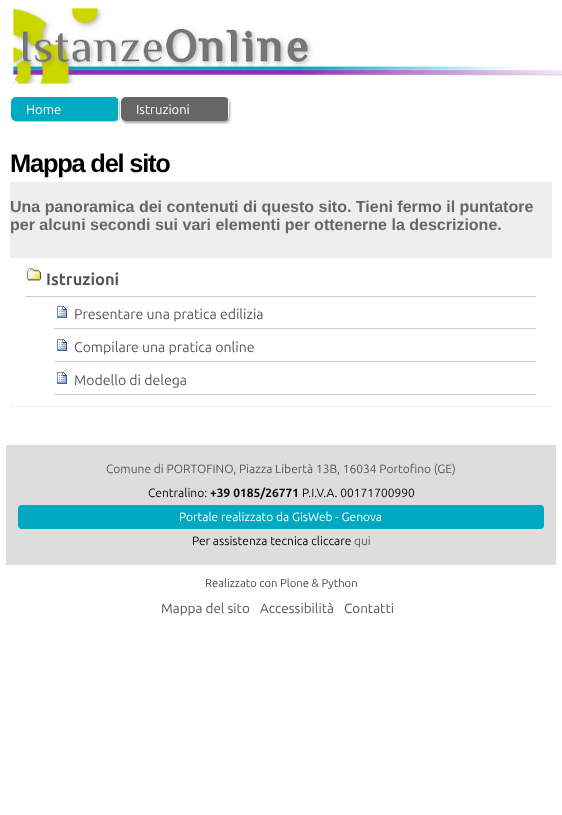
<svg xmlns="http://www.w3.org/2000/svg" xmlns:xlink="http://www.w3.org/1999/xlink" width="562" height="815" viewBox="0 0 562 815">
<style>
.cls-1{font:13px Ubuntu;fill:#ffffff}
.cls-2{font:bold 25.5px Liberation Sans;letter-spacing:-1.25px;fill:#000000}
.cls-3{font:bold 16px Liberation Sans;fill:#666666}
.cls-4{font:bold 16.5px Ubuntu;fill:#555555}
.cls-5{font:14.1px Ubuntu;fill:#555555}
.cls-6{font:12px Ubuntu;fill:#555555}
.cls-7{font:12px Ubuntu;fill:#000000}
.cls-8{font:bold 12px Ubuntu;fill:#000000}
.cls-9{font:12px Ubuntu;fill:#ffffff}
.cls-10{font:11.25px Ubuntu;fill:#444444}
.cls-11{font:13.5px Ubuntu;fill:#555555}
</style>
<rect width="100%" height="100%" fill="#ffffff"/>
<image xlink:href="image0.png" x="13" y="8" width="549" height="76"/>
<rect fill="#00aac3" fill-opacity="0.4" filter="blur(0.5px)" x="12" y="98" width="108" height="24" rx="5"/>
<rect fill="#00aac3" x="11" y="97" width="108" height="24" rx="5"/>
<rect fill="#ffffff" x="118" y="100" width="1" height="19"/>
<rect fill="#666666" fill-opacity="0.6" filter="blur(1px)" x="122" y="99" width="108" height="24" rx="5"/>
<rect fill="#666666" x="121" y="97" width="108" height="24" rx="5"/>
<rect fill="#ffffff" x="228" y="100" width="1" height="19"/>
<rect fill="#eeeeee" x="10" y="182" width="542" height="76"/>
<path fill="none" stroke="#dddddd" stroke-dasharray="1 1" d="M10 406.5H552"/>
<image xlink:href="image1.png" x="27" y="268" width="14" height="13"/>
<rect fill="#cccccc" x="26" y="296" width="510" height="1"/>
<image xlink:href="image2.png" x="57" y="306" width="10" height="12"/>
<rect fill="#cccccc" x="54" y="328" width="482" height="1"/>
<image xlink:href="image2.png" x="57" y="339" width="10" height="12"/>
<rect fill="#cccccc" x="54" y="361" width="482" height="1"/>
<image xlink:href="image2.png" x="57" y="372" width="10" height="12"/>
<rect fill="#cccccc" x="54" y="394" width="482" height="1"/>
<rect fill="#dddddd" x="6" y="445" width="550" height="120"/>
<rect fill="#01a8c1" x="18" y="505" width="526" height="24" rx="4"/>
<text class="cls-1" x="26" y="114">Home</text>
<text class="cls-1" x="136" y="114">Istruzioni</text>
<text class="cls-2" x="10" y="172">Mappa del sito</text>
<text class="cls-3"><tspan x="10" y="212">Una panoramica dei contenuti di questo sito. Tieni fermo il puntatore</tspan><tspan x="10" y="230">per alcuni secondi sui vari elementi per ottenerne la descrizione.</tspan></text>
<text class="cls-4" x="46" y="285">Istruzioni</text>
<text class="cls-5" x="74" y="319">Presentare una pratica edilizia</text>
<text class="cls-5" x="74" y="352">Compilare una pratica online</text>
<text class="cls-5" x="74" y="385">Modello di delega</text>
<text class="cls-6" x="106" y="473">Comune di PORTOFINO, Piazza Libertà 13B, 16034 Portofino (GE)</text>
<text class="cls-7" x="148" y="497">Centralino:</text>
<text class="cls-8" x="210" y="497">+39 0185/26771</text>
<text class="cls-7" x="302" y="497">P.I.V.A. 00171700990</text>
<text class="cls-9" x="179" y="521">Portale realizzato da GisWeb - Genova</text>
<text class="cls-7" x="192" y="545">Per assistenza tecnica cliccare</text>
<text class="cls-6" x="354" y="545">qui</text>
<text class="cls-10" x="205" y="587">Realizzato con Plone &amp; Python</text>
<text class="cls-11" x="161" y="613">Mappa del sito</text>
<text class="cls-11" x="260" y="613">Accessibilità</text>
<text class="cls-11" x="344" y="613">Contatti</text>
</svg>
